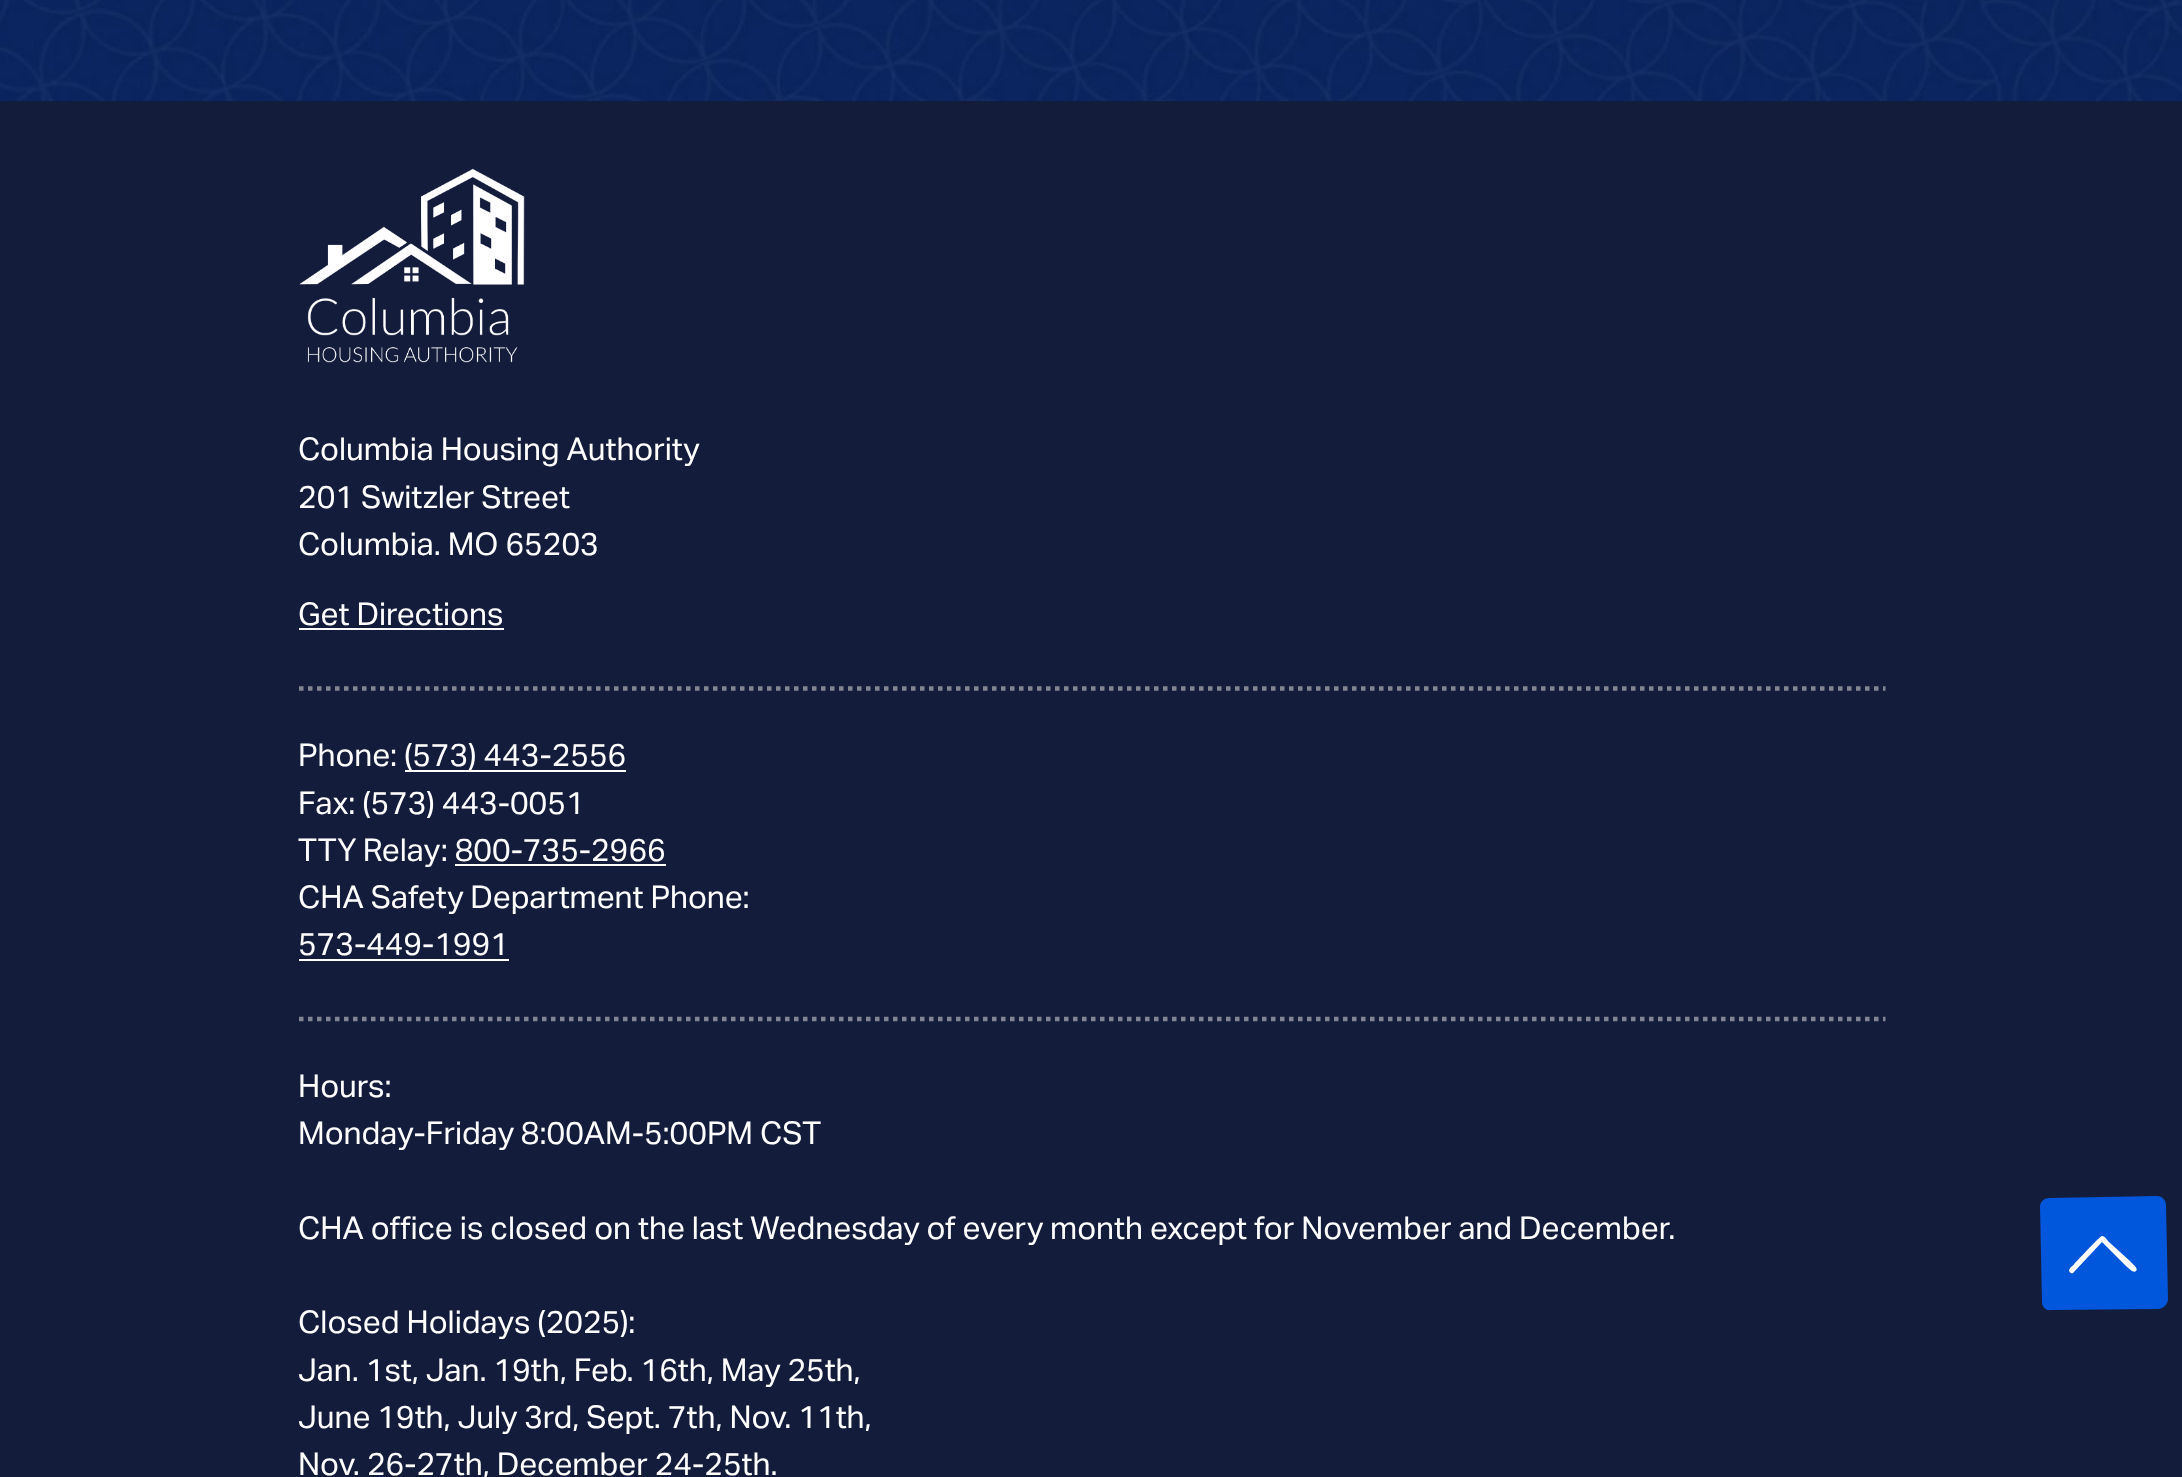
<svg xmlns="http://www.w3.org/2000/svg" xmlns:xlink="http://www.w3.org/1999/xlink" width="2182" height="1477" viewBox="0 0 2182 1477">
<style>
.cls-1{font:31.5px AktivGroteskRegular;fill:#ffffff}
</style>
<rect width="100%" height="100%" fill="#ffffff"/>
<image xlink:href="image0.png" x="0" y="0" width="2182" height="101"/>
<rect fill="#141c3b" x="0" y="101" width="2182" height="1376"/>
<image xlink:href="image1.png" x="299" y="168" width="226" height="195"/>
<path fill="none" stroke="#808493" stroke-width="4.5" stroke-dasharray="4.5 4.5" d="M299 688.5H1885.5"/>
<rect fill="#ffffff" x="299" y="628" width="205" height="2"/>
<path fill="none" stroke="#808493" stroke-width="4.5" stroke-dasharray="4.5 4.5" d="M299 1019H1885.5"/>
<rect fill="#ffffff" x="405" y="770" width="221" height="2"/>
<rect fill="#ffffff" x="455" y="864" width="211" height="2"/>
<rect fill="#ffffff" x="299" y="959" width="210" height="2"/>
<path fill="#0057dc" d="M2166 1205L2168 1299C2168 1304 2164 1308 2159 1309L2051 1310C2046 1311 2042 1307 2042 1302L2040 1207C2040 1202 2044 1198 2049 1198L2157 1196C2162 1196 2166 1200 2166 1205Z"/>
<path fill="#ffffff" d="M2136 1271C2133 1274 2128 1267 2127 1267L2102 1242L2073 1273C2071 1274 2069 1272 2069 1270C2070 1267 2073 1266 2075 1263C2078 1260 2100 1236 2102 1236C2105 1236 2107 1240 2109 1242L2131 1262C2131 1263 2139 1268 2136 1271Z"/>
<text class="cls-1"><tspan x="298" y="460">Columbia Housing Authority</tspan><tspan x="298" y="508">201 Switzler Street</tspan><tspan x="298" y="555">Columbia. MO 65203</tspan></text>
<text class="cls-1" x="298" y="625">Get Directions</text>
<text class="cls-1"><tspan x="298" y="766">Phone: (573) 443-2556</tspan><tspan x="298" y="814">Fax: (573) 443-0051</tspan><tspan x="298" y="861">TTY Relay: 800-735-2966</tspan><tspan x="298" y="908">CHA Safety Department Phone:</tspan><tspan x="298" y="955">573-449-1991</tspan></text>
<text class="cls-1"><tspan x="298" y="1097">Hours:</tspan><tspan x="298" y="1144">Monday-Friday 8:00AM-5:00PM CST</tspan></text>
<text class="cls-1" x="298" y="1239">CHA office is closed on the last Wednesday of every month except for November and December.</text>
<text class="cls-1"><tspan x="298" y="1333">Closed Holidays (2025):</tspan><tspan x="298" y="1381">Jan. 1st, Jan. 19th, Feb. 16th, May 25th,</tspan><tspan x="298" y="1428">June 19th, July 3rd, Sept. 7th, Nov. 11th,</tspan><tspan x="298" y="1475">Nov. 26-27th, December 24-25th.</tspan></text>
</svg>
